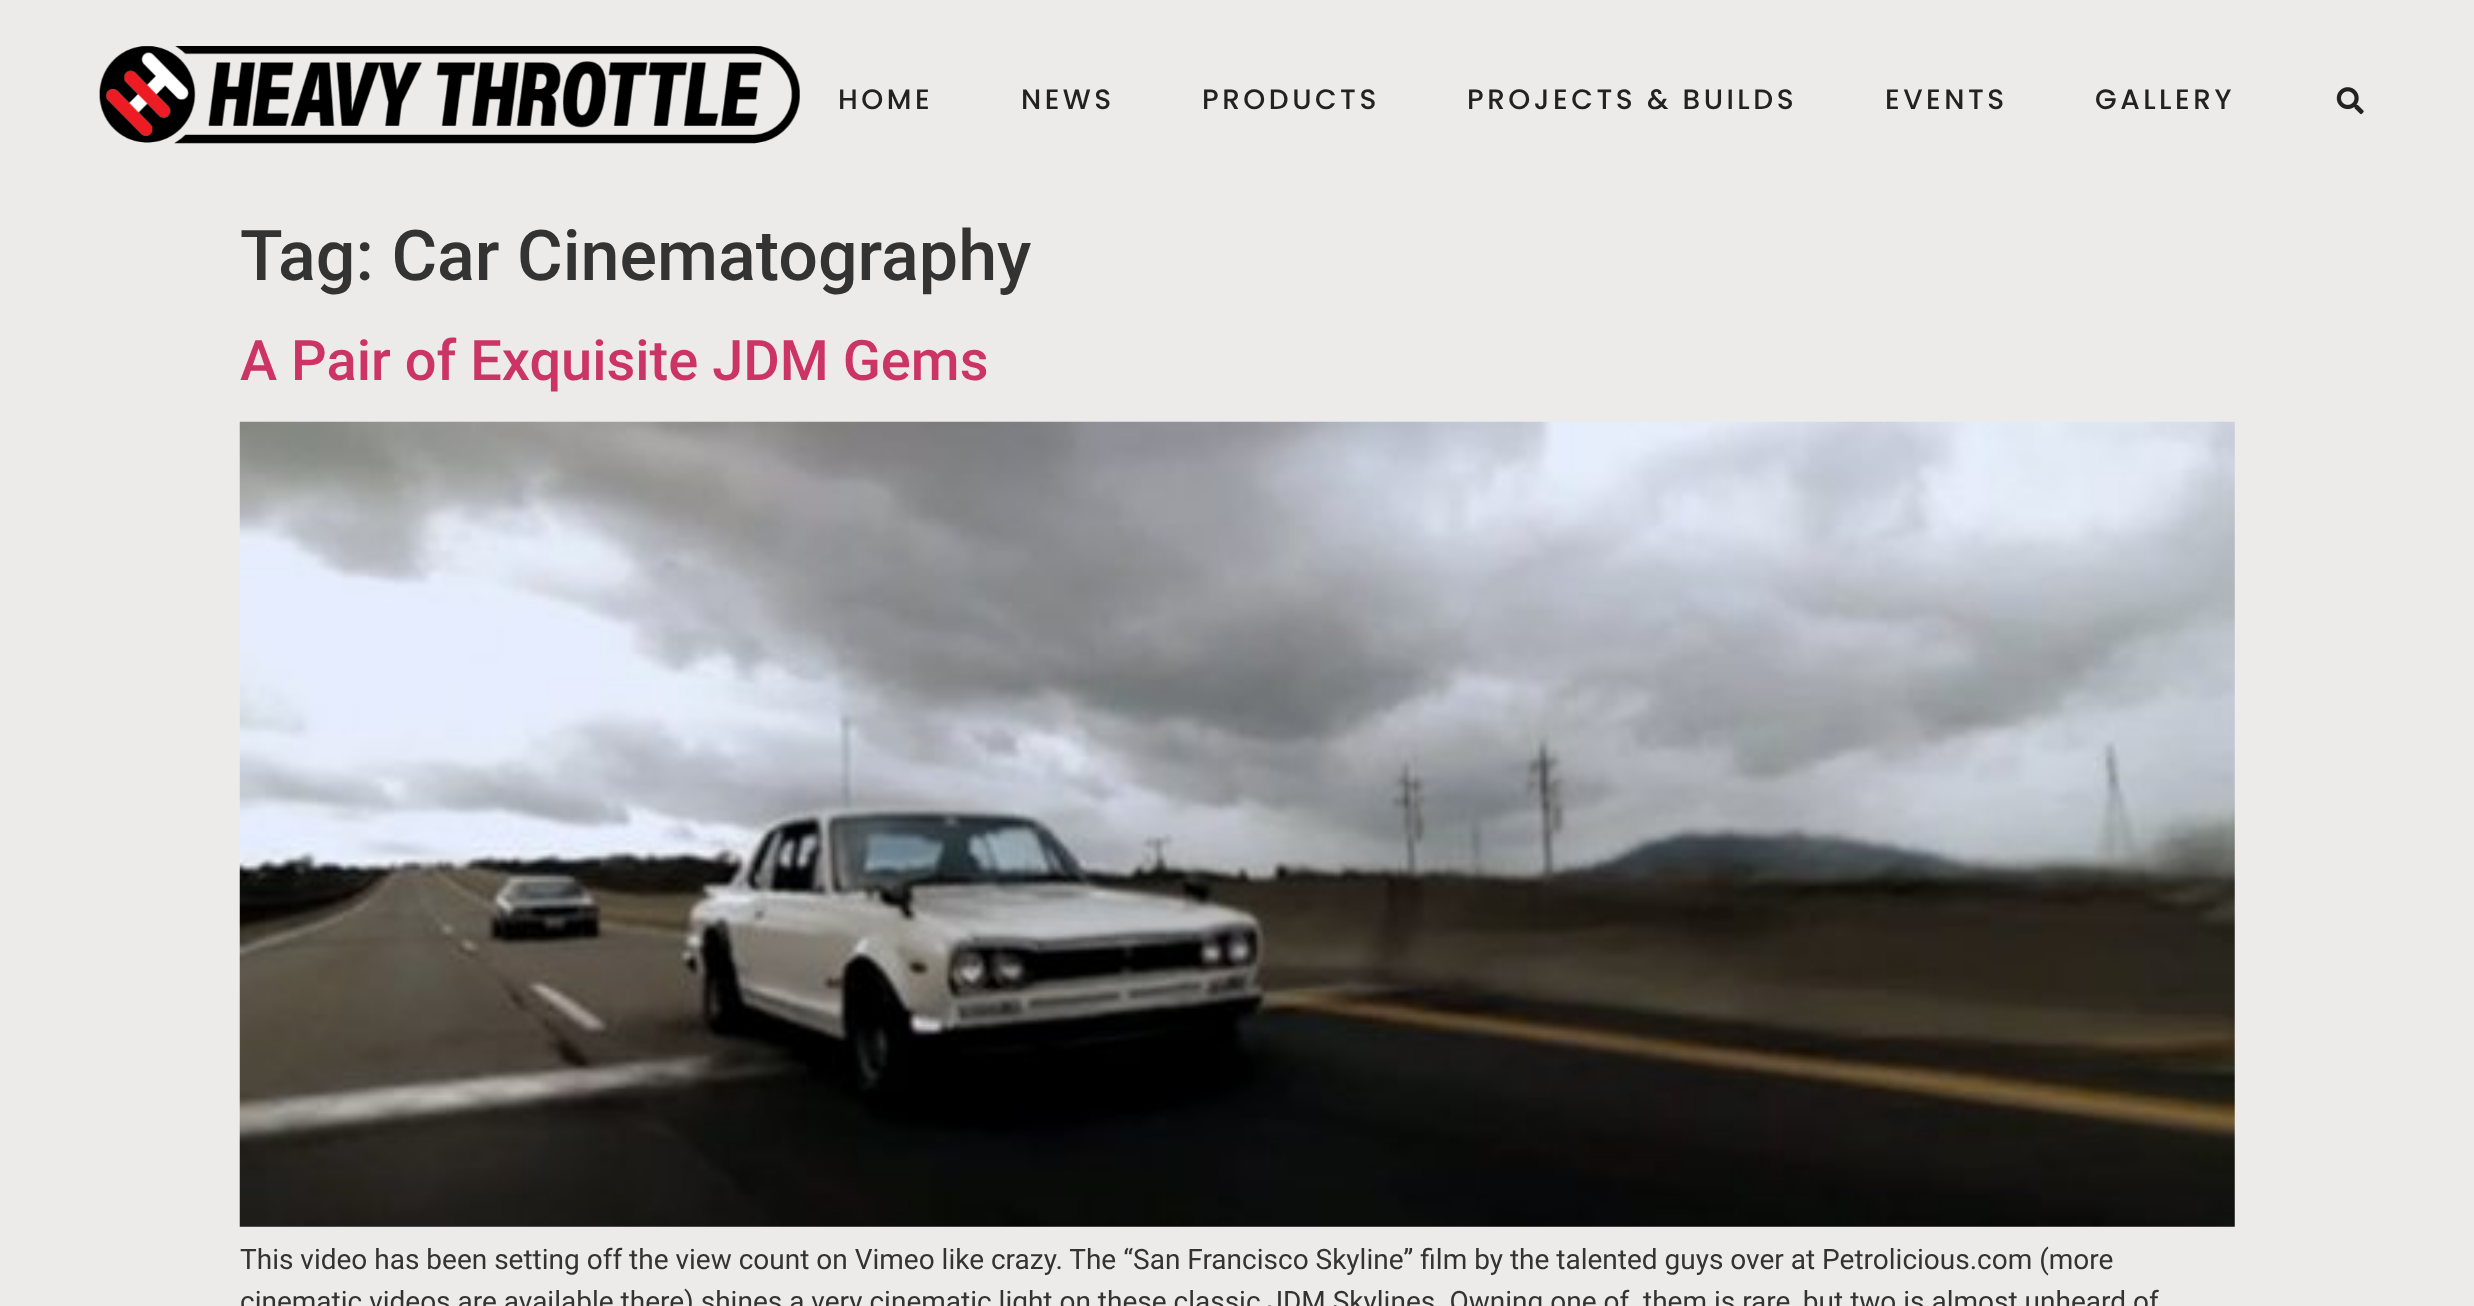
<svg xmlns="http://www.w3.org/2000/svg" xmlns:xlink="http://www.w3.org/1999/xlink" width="2474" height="1306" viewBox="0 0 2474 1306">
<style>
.cls-1{font:500 28px Poppins;letter-spacing:3.5px;fill:#222222}
.cls-2{font:500 70px Roboto;fill:#333333}
.cls-3{font:500 56px Roboto;fill:#cc3366}
.cls-4{font:28px Roboto;fill:#333333}
</style>
<rect width="100%" height="100%" fill="#edebe9"/>
<image xlink:href="image0.png" x="99" y="46" width="701" height="98"/>
<image xlink:href="image1.png" x="2336" y="87" width="28" height="28"/>
<image xlink:href="image2.png" x="239" y="421" width="1996" height="806"/>
<text class="cls-1" x="838" y="109">HOME</text>
<text class="cls-1" x="1021" y="109">NEWS</text>
<text class="cls-1" x="1202" y="109">PRODUCTS</text>
<text class="cls-1" x="1467" y="109">PROJECTS &amp; BUILDS</text>
<text class="cls-1" x="1885" y="109">EVENTS</text>
<text class="cls-1" x="2095" y="109">GALLERY</text>
<text class="cls-2" x="240" y="280">Tag: Car Cinematography</text>
<text class="cls-3" x="240" y="380">A Pair of Exquisite JDM Gems</text>
<text class="cls-4" xml:space="preserve"><tspan x="240" y="1269">This video has been setting off the view count on Vimeo like crazy. The “San Francisco Skyline” film by the talented guys over at Petrolicious.com (more</tspan><tspan x="240" y="1311">cinematic videos are available there) shines a very cinematic light on these classic JDM Skylines. Owning one of  them is rare, but two is almost unheard of.</tspan></text>
</svg>
